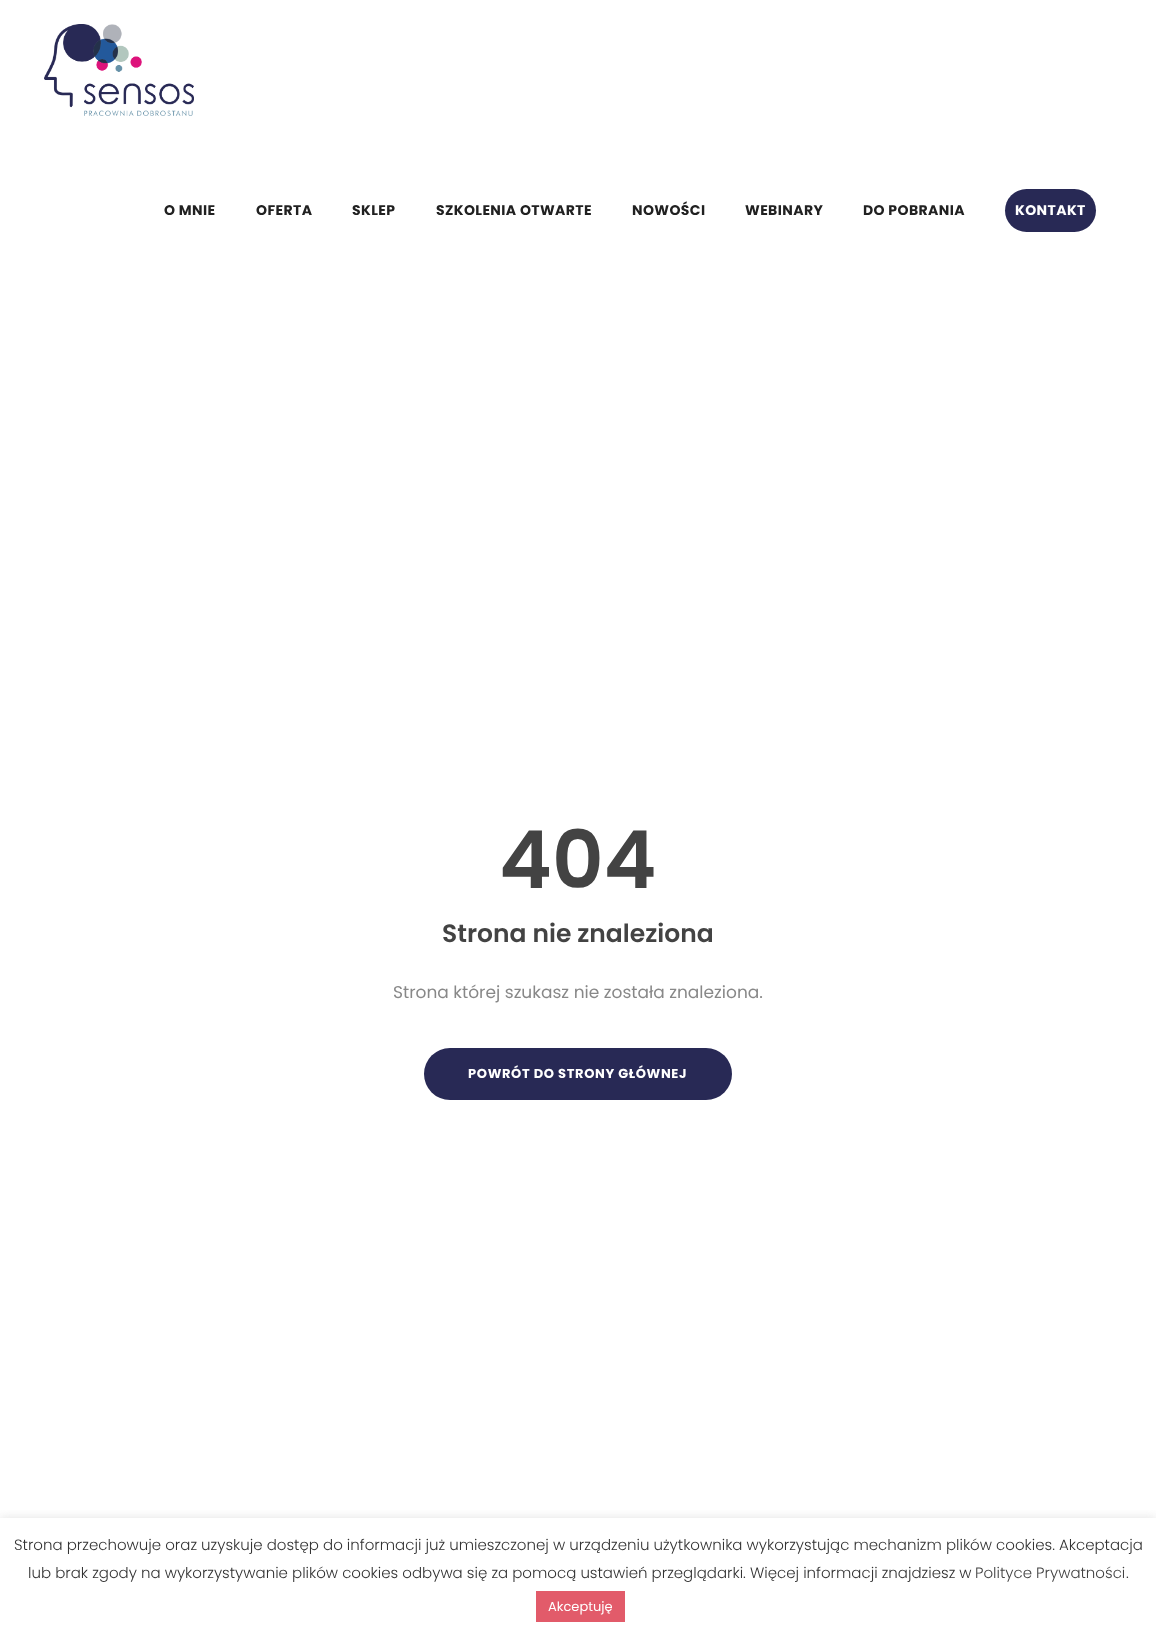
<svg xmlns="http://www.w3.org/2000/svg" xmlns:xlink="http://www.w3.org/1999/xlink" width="1156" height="1634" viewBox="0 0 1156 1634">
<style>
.cls-1{font:bold 14px Poppins;letter-spacing:0.4px;fill:#212121}
.cls-2{font:bold 14px Poppins;letter-spacing:0.4px;fill:#ffffff}
.cls-3{font:600 80px Poppins;fill:#434343}
.cls-4{font:600 25px Poppins;fill:#434343}
.cls-5{font:17px Poppins;fill:#888888}
.cls-6{font:bold 13px Poppins;letter-spacing:0.65px;fill:#ffffff}
.cls-7{font:300 15px Poppins;fill:#333333}
.cls-8{font:300 15px Poppins;fill:#434343}
.cls-9{font:13px Poppins;fill:#ffffff}
</style>
<defs>
<clipPath id="clip1"><rect x="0" y="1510" width="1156" height="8"/></clipPath>
</defs>
<rect width="100%" height="100%" fill="#ffffff"/>
<image xlink:href="image0.png" x="44" y="24" width="150" height="92"/>
<rect fill="#282955" x="1005" y="189" width="91" height="43" rx="21.5"/>
<rect fill="#282955" x="424" y="1048" width="308" height="52" rx="26"/>
<g clip-path="url(#clip1)">
<rect fill="#acabab" fill-opacity="0.3" filter="blur(5px)" x="0" y="1517" width="1156" height="116"/>
</g>
<rect fill="#e25b6a" x="536" y="1591" width="89" height="31"/>
<text class="cls-1" x="164" y="215">O MNIE</text>
<text class="cls-1" x="256" y="215">OFERTA</text>
<text class="cls-1" x="352" y="215">SKLEP</text>
<text class="cls-1" x="436" y="215">SZKOLENIA OTWARTE</text>
<text class="cls-1" x="632" y="215">NOWOŚCI</text>
<text class="cls-1" x="745" y="215">WEBINARY</text>
<text class="cls-1" x="863" y="215">DO POBRANIA</text>
<text class="cls-2" x="1015" y="215">KONTAKT</text>
<text class="cls-3" x="499" y="888">404</text>
<text class="cls-4" x="442" y="942">Strona nie znaleziona</text>
<text class="cls-5" x="393" y="998">Strona której szukasz nie została znaleziona.</text>
<text class="cls-6" x="468" y="1078">POWRÓT DO STRONY GŁÓWNEJ</text>
<text class="cls-7" x="14" y="1550">Strona przechowuje oraz uzyskuje dostęp do informacji już umieszczonej w urządzeniu użytkownika wykorzystując mechanizm plików cookies. Akceptacja</text>
<text class="cls-7" x="28" y="1578">lub brak zgody na wykorzystywanie plików cookies odbywa się za pomocą ustawień przeglądarki. Więcej informacji znajdziesz w</text>
<text class="cls-8" x="975" y="1578">Polityce Prywatności</text>
<text class="cls-7" x="1126" y="1578">.</text>
<text class="cls-9" x="548" y="1611">Akceptuję</text>
</svg>
